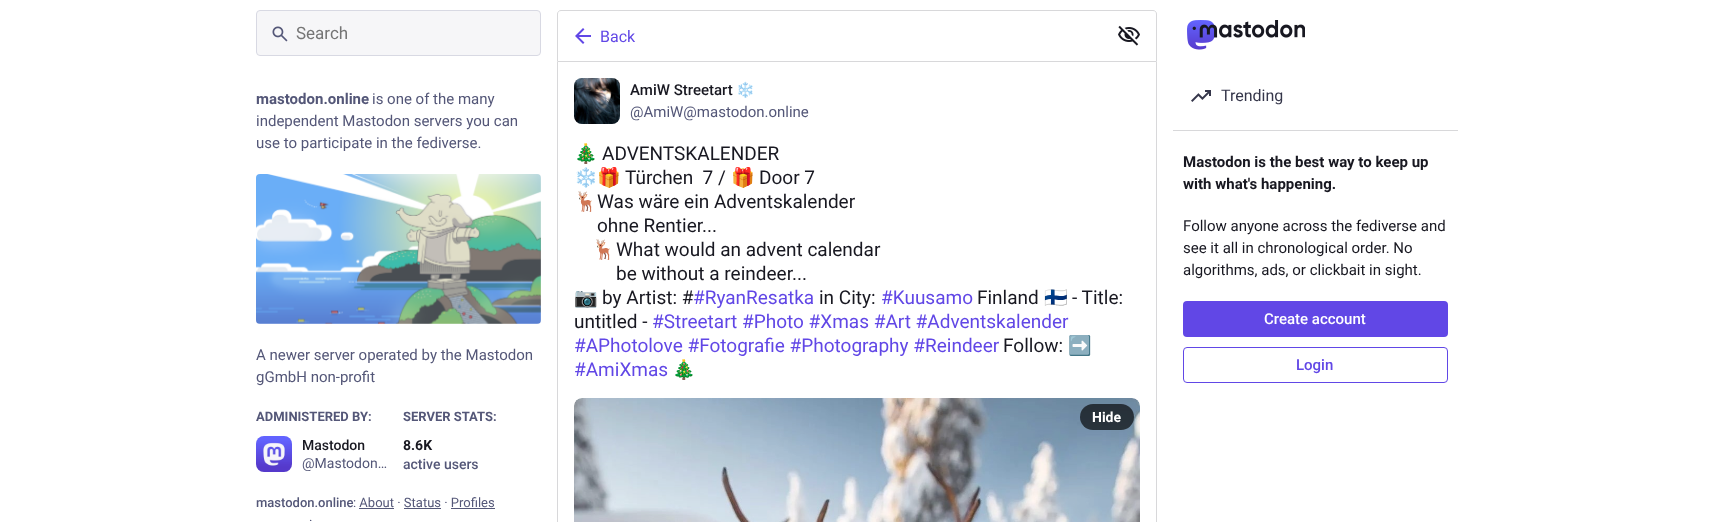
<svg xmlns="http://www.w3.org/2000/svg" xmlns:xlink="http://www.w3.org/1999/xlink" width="1713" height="522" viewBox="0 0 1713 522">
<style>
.cls-1{font:17px Roboto;fill:#757575}
.cls-2{font:bold 15px Roboto;fill:#545778}
.cls-3{font:15px Roboto;fill:#545778}
.cls-4{font:bold 13px Roboto;fill:#545778}
.cls-5{font:500 14px Roboto;fill:#181821}
.cls-6{font:14px Roboto;fill:#545778}
.cls-7{font:bold 14px Roboto;fill:#181821}
.cls-8{font:500 14px Roboto;fill:#545778}
.cls-9{font:500 13px Roboto;fill:#545778}
.cls-10{font:13px Roboto;fill:#545778}
.cls-11{font:16px Roboto;fill:#6147e6}
.cls-12{font:500 15px Roboto;fill:#181821}
.cls-13{font:15px Noto Color Emoji;fill:#181821}
.cls-14{font:19px Noto Color Emoji;fill:#181821}
.cls-15{font:19px Roboto;fill:#181821}
.cls-16{font:19px Roboto;fill:#6147e6}
.cls-17{font:bold 14px Roboto;fill:#ffffff}
.cls-18{font:16px Roboto;fill:#35364a}
.cls-19{font:bold 15px Roboto;fill:#181821}
.cls-20{font:15px Roboto;fill:#181821}
.cls-21{font:500 15px Roboto;fill:#ffffff}
.cls-22{font:500 15px Roboto;fill:#6147e6}
</style>
<defs>
<clipPath id="clip1"><rect x="574" y="140" width="566" height="242"/></clipPath>
</defs>
<rect width="100%" height="100%" fill="#ffffff"/>
<rect fill="#f6f6f8" stroke="#d8d9e3" x="256.5" y="10.5" width="284" height="45" rx="3.5"/>
<image xlink:href="image0.png" x="272" y="26" width="16" height="16"/>
<image xlink:href="image1.png" x="256" y="174" width="285" height="150"/>
<rect fill="#ecedf1" x="256" y="436" width="36" height="36" rx="8"/>
<image xlink:href="image2.png" x="256" y="436" width="36" height="36"/>
<rect fill="#545778" x="359" y="508" width="35" height="1"/>
<rect fill="#545778" x="404" y="508" width="37" height="1"/>
<rect fill="#545778" x="451" y="508" width="44" height="1"/>
<path fill="none" stroke="#d8d8da" d="M561 10.5H1153C1155 10.5 1156.5 12 1156.5 14V61.5H557.5V14C557.5 12 559 10.5 561 10.5Z"/>
<image xlink:href="image3.png" x="575" y="28" width="16" height="16"/>
<image xlink:href="image4.png" x="1118" y="25" width="22" height="21"/>
<path fill="#d8d8da" fill-rule="evenodd" d="M557 62H1157V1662C1157 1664 1155 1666 1153 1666H561C559 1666 557 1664 557 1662ZM558 62H1156V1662C1156 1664 1155 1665 1153 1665H561C559 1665 558 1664 558 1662Z"/>
<rect fill="#ecedf1" x="574" y="78" width="46" height="46" rx="8"/>
<image xlink:href="image5.png" x="574" y="78" width="46" height="46"/>
<image xlink:href="image6.png" x="574" y="398" width="566" height="124"/>
<path fill="#fcf8ff" fill-opacity="0.15" d="M582 398H1132C1136 398 1140 402 1140 406V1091C1140 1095 1136 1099 1132 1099H582C578 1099 574 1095 574 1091V406C574 402 578 398 582 398Z"/>
<rect fill="#000000" fill-opacity="0.65" x="1080" y="404" width="54" height="26" rx="13"/>
<image xlink:href="image7.png" x="1187" y="20" width="118" height="30"/>
<image xlink:href="image8.png" x="1191" y="90" width="20" height="12"/>
<rect fill="#d8d8da" x="1173" y="130" width="285" height="1"/>
<rect fill="#6147e6" x="1183" y="301" width="265" height="36" rx="4"/>
<rect fill="none" stroke="#6147e6" x="1183.5" y="347.5" width="264" height="35" rx="3.5"/>
<text class="cls-1" x="296" y="39">Search</text>
<text class="cls-2" x="256" y="104">mastodon.online</text>
<text class="cls-3" x="372" y="104">is one of the many</text>
<text class="cls-3"><tspan x="256" y="126">independent Mastodon servers you can</tspan><tspan x="256" y="148">use to participate in the fediverse.</tspan></text>
<text class="cls-3"><tspan x="256" y="360">A newer server operated by the Mastodon</tspan><tspan x="256" y="382">gGmbH non-profit</tspan></text>
<text class="cls-4" x="256" y="421">ADMINISTERED BY:</text>
<text class="cls-5" x="302" y="450">Mastodon</text>
<text class="cls-6" x="302" y="468">@Mastodon…</text>
<text class="cls-4" x="403" y="421">SERVER STATS:</text>
<text class="cls-7" x="403" y="450">8.6K</text>
<text class="cls-8" x="403" y="469">active users</text>
<text class="cls-9" x="256" y="507">mastodon.online</text>
<text class="cls-10" x="353" y="507">: About · Status · Profiles</text>
<text class="cls-10" x="309" y="525">·</text>
<text class="cls-11" x="600" y="42">Back</text>
<text class="cls-12" x="630" y="95">AmiW Streetart</text>
<text class="cls-13" x="736" y="95">❄️</text>
<text class="cls-3" x="630" y="117">@AmiW@mastodon.online</text>
<g clip-path="url(#clip1)">
<text class="cls-14" x="574" y="160">🎄</text>
</g>
<text class="cls-15" x="602" y="160">ADVENTSKALENDER</text>
<g clip-path="url(#clip1)">
<text class="cls-14" x="574" y="184">❄️</text>
</g>
<text class="cls-14" x="597" y="184">🎁</text>
<text class="cls-15" xml:space="preserve" x="625" y="184">Türchen  7 /</text>
<text class="cls-14" x="731" y="184">🎁</text>
<text class="cls-15" x="759" y="184">Door 7</text>
<g clip-path="url(#clip1)">
<text class="cls-14" x="574" y="208">🦌</text>
</g>
<text class="cls-15"><tspan x="597" y="208">Was wäre ein Adventskalender</tspan><tspan x="597" y="232">ohne Rentier...</tspan></text>
<text class="cls-14" x="592" y="256">🦌</text>
<text class="cls-15"><tspan x="616" y="256">What would an advent calendar</tspan><tspan x="616" y="280">be without a reindeer...</tspan></text>
<g clip-path="url(#clip1)">
<text class="cls-14" x="574" y="304">📷</text>
</g>
<text class="cls-15" x="602" y="304">by Artist: #</text>
<text class="cls-16" x="693" y="304">#RyanResatka</text>
<text class="cls-15" x="819" y="304">in City:</text>
<text class="cls-16" x="881" y="304">#Kuusamo</text>
<text class="cls-15" x="977" y="304">Finland</text>
<text class="cls-14" x="1044" y="304">🇫🇮</text>
<text class="cls-15" x="1072" y="304">- Title:</text>
<text class="cls-15" x="574" y="328">untitled -</text>
<text class="cls-16" x="652" y="328">#Streetart #Photo #Xmas #Art #Adventskalender</text>
<text class="cls-16" x="574" y="352">#APhotolove #Fotografie #Photography #Reindeer</text>
<text class="cls-15" x="1003" y="352">Follow:</text>
<text class="cls-14" x="1068" y="352">➡️</text>
<text class="cls-16" x="574" y="376">#AmiXmas</text>
<text class="cls-14" x="672" y="376">🎄</text>
<text class="cls-17" x="1092" y="422">Hide</text>
<text class="cls-18" x="1221" y="101">Trending</text>
<text class="cls-19"><tspan x="1183" y="167">Mastodon is the best way to keep up</tspan><tspan x="1183" y="189">with what's happening.</tspan></text>
<text class="cls-20"><tspan x="1183" y="231">Follow anyone across the fediverse and</tspan><tspan x="1183" y="253">see it all in chronological order. No</tspan><tspan x="1183" y="275">algorithms, ads, or clickbait in sight.</tspan></text>
<text class="cls-21" x="1264" y="324">Create account</text>
<text class="cls-22" x="1296" y="370">Login</text>
</svg>
